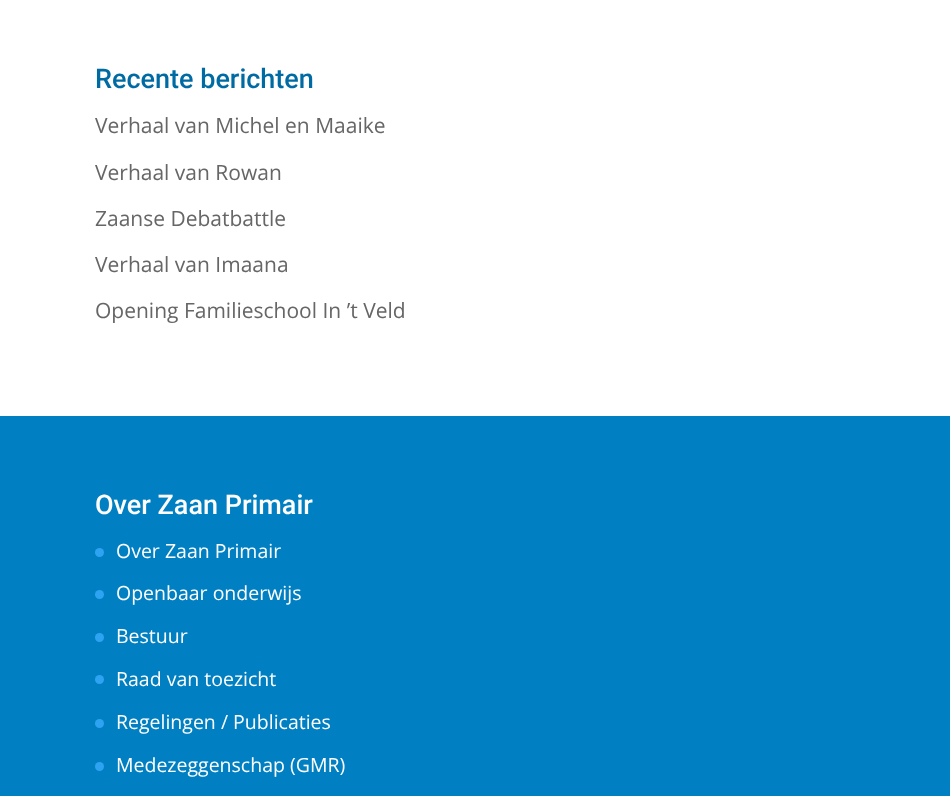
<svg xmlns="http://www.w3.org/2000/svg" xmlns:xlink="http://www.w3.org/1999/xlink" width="950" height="796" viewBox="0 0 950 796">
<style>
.cls-1{font:500 27px Roboto;fill:#006ba3}
.cls-2{font:21px Open Sans;fill:#666666}
.cls-3{font:500 27px Roboto;fill:#ffffff}
.cls-4{font:19.5px Open Sans;fill:#ffffff}
</style>
<rect width="100%" height="100%" fill="#ffffff"/>
<rect fill="#0080c2" x="0" y="416" width="950" height="380"/>
<circle fill="#2ea3f2" cx="99.5" cy="552.5" r="4.5"/>
<circle fill="#2ea3f2" cx="99.5" cy="594.5" r="4.5"/>
<circle fill="#2ea3f2" cx="99.5" cy="637.5" r="4.5"/>
<circle fill="#2ea3f2" cx="99.5" cy="679.5" r="4.5"/>
<circle fill="#2ea3f2" cx="99.5" cy="723.5" r="4.5"/>
<circle fill="#2ea3f2" cx="99.5" cy="766.5" r="4.5"/>
<text class="cls-1" x="95" y="88">Recente berichten</text>
<text class="cls-2" x="95" y="133">Verhaal van Michel en Maaike</text>
<text class="cls-2" x="95" y="180">Verhaal van Rowan</text>
<text class="cls-2" x="95" y="226">Zaanse Debatbattle</text>
<text class="cls-2" x="95" y="272">Verhaal van Imaana</text>
<text class="cls-2" x="95" y="318">Opening Familieschool In ’t Veld</text>
<text class="cls-3" x="95" y="514">Over Zaan Primair</text>
<text class="cls-4" x="116" y="558">Over Zaan Primair</text>
<text class="cls-4" x="116" y="600">Openbaar onderwijs</text>
<text class="cls-4" x="116" y="643">Bestuur</text>
<text class="cls-4" x="116" y="686">Raad van toezicht</text>
<text class="cls-4" x="116" y="729">Regelingen / Publicaties</text>
<text class="cls-4" x="116" y="772">Medezeggenschap (GMR)</text>
</svg>
